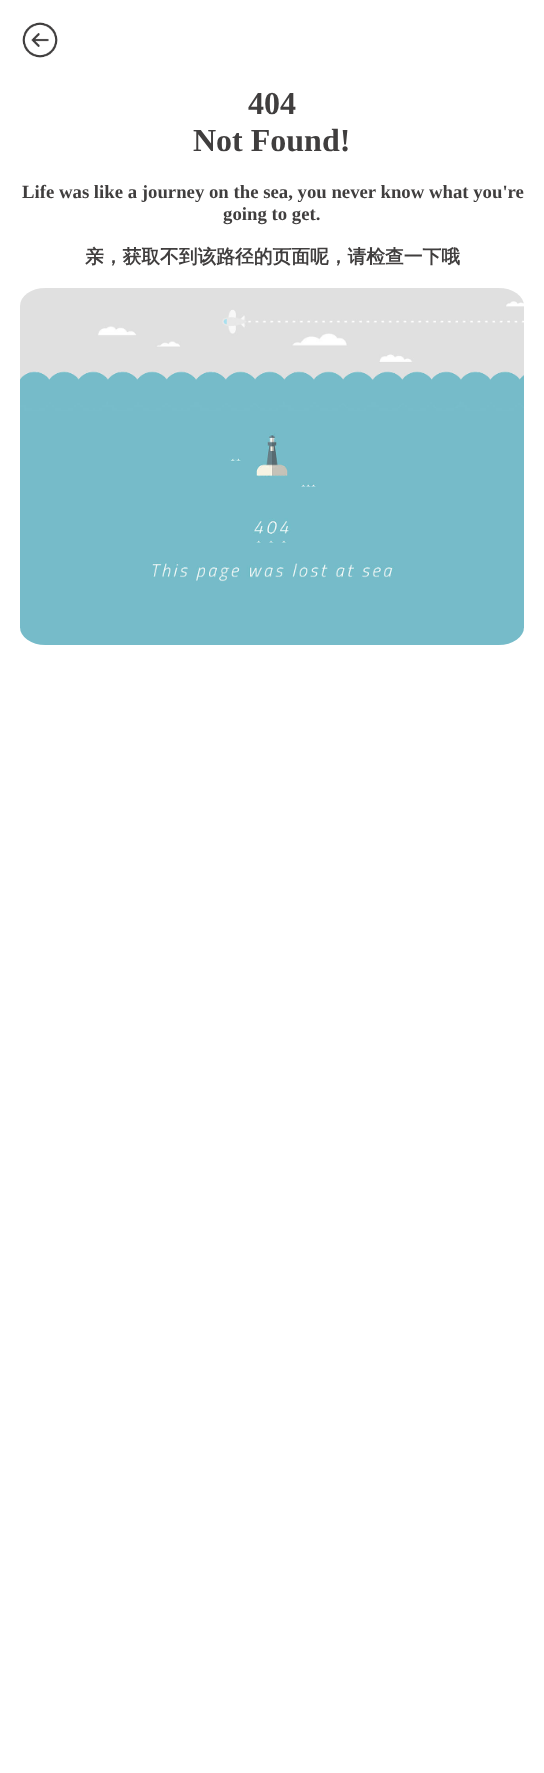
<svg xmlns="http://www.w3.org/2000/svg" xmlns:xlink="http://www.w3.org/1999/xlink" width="544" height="1773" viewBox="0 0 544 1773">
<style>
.cls-1{font:bold 32px Liberation Serif;fill:#403e3e}
.cls-2{font:bold 18.75px Liberation Serif;fill:#403e3e}
.cls-3{font:bold 18.75px WenQuanYi Zen Hei;fill:#403e3e}
</style>
<rect width="100%" height="100%" fill="#ffffff"/>
<image xlink:href="image0.png" x="22" y="22" width="36" height="36"/>
<image xlink:href="image1.png" x="20" y="288" width="504" height="357"/>
<text class="cls-1" x="248" y="114">404</text>
<text class="cls-1" x="193" y="151">Not Found!</text>
<text class="cls-2" x="22" y="198">Life was like a journey on the sea, you never know what you're</text>
<text class="cls-2" x="223" y="220">going to get.</text>
<text class="cls-3" x="85" y="263">亲，获取不到该路径的页面呢，请检查一下哦</text>
</svg>
